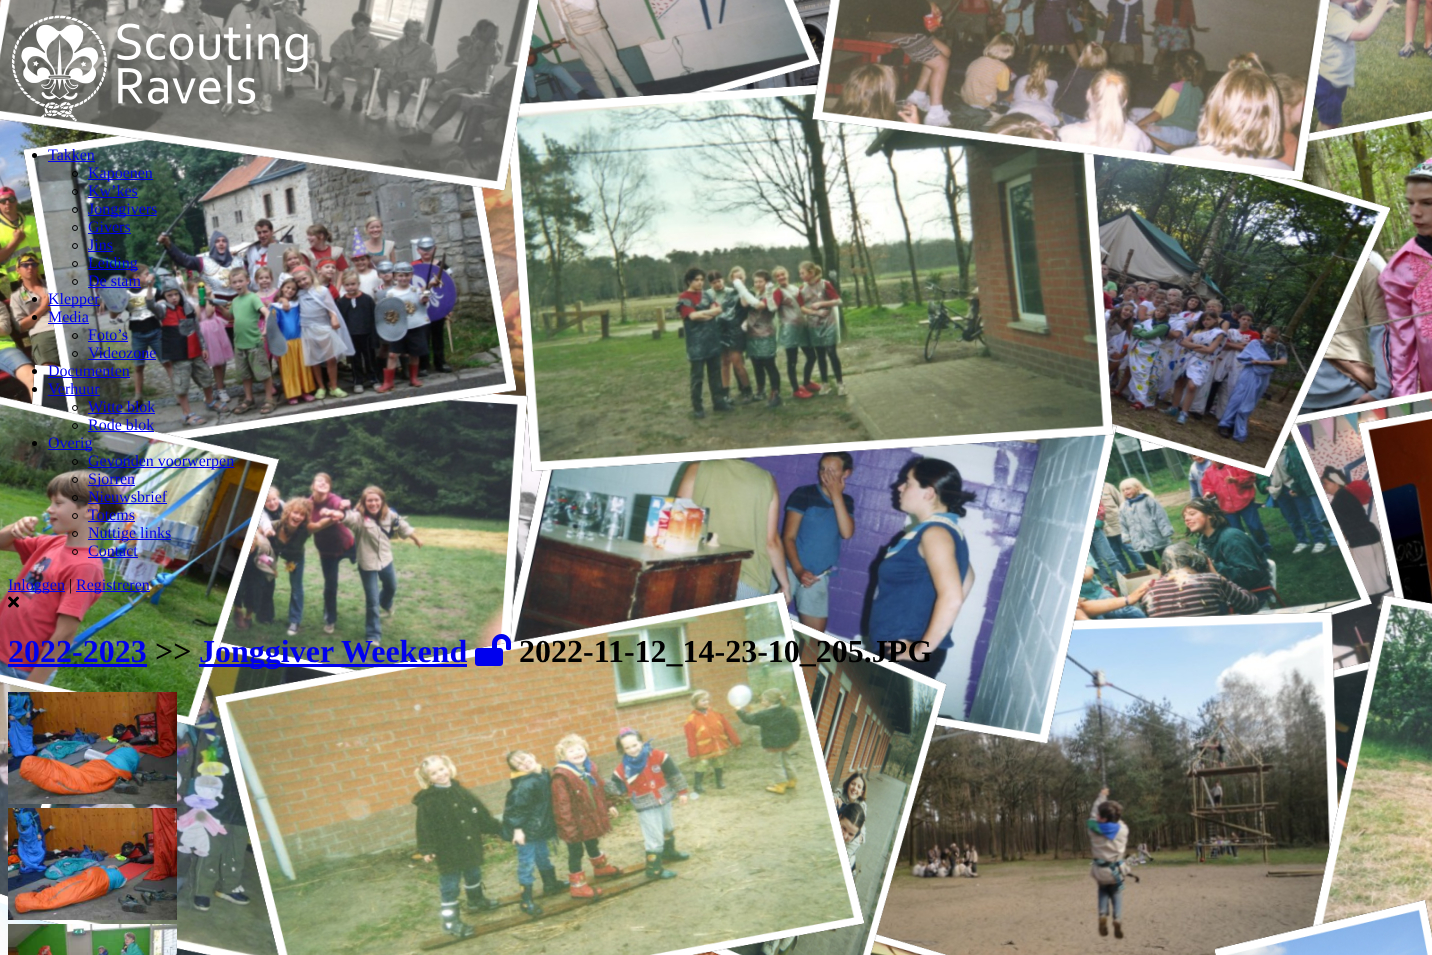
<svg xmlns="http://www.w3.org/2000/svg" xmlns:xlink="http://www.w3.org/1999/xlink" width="1432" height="955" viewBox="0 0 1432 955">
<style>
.cls-1{font:16px Liberation Serif;fill:#0000ee}
.cls-2{font:16px Liberation Serif;fill:#000000}
.cls-3{font:bold 32px Liberation Serif;fill:#0000ee}
.cls-4{font:bold 32px Liberation Serif;fill:#000000}
</style>
<rect width="100%" height="100%" fill="#ffffff"/>
<image xlink:href="image0.png" x="0" y="0" width="1432" height="955"/>
<image xlink:href="image1.png" x="11" y="15" width="297" height="107"/>
<circle fill="#000000" cx="34.5" cy="155.5" r="2.5"/>
<rect fill="#0000ee" x="48" y="161" width="47" height="1"/>
<circle fill="none" stroke="#000000" cx="75" cy="174" r="2.5"/>
<rect fill="#0000ee" x="88" y="179" width="65" height="1"/>
<circle fill="none" stroke="#000000" cx="75" cy="192" r="2.5"/>
<rect fill="#0000ee" x="88" y="197" width="50" height="1"/>
<circle fill="none" stroke="#000000" cx="75" cy="210" r="2.5"/>
<rect fill="#0000ee" x="88" y="215" width="69" height="1"/>
<circle fill="none" stroke="#000000" cx="75" cy="228" r="2.5"/>
<rect fill="#0000ee" x="88" y="233" width="43" height="1"/>
<circle fill="none" stroke="#000000" cx="75" cy="246" r="2.5"/>
<rect fill="#0000ee" x="88" y="251" width="25" height="1"/>
<circle fill="none" stroke="#000000" cx="75" cy="264" r="2.5"/>
<rect fill="#0000ee" x="88" y="269" width="50" height="1"/>
<circle fill="none" stroke="#000000" cx="75" cy="282" r="2.5"/>
<rect fill="#0000ee" x="88" y="287" width="53" height="1"/>
<circle fill="#000000" cx="34.5" cy="299.5" r="2.5"/>
<rect fill="#0000ee" x="48" y="305" width="52" height="1"/>
<circle fill="#000000" cx="34.5" cy="317.5" r="2.5"/>
<rect fill="#0000ee" x="48" y="323" width="41" height="1"/>
<circle fill="none" stroke="#000000" cx="75" cy="336" r="2.5"/>
<rect fill="#0000ee" x="88" y="341" width="40" height="1"/>
<circle fill="none" stroke="#000000" cx="75" cy="354" r="2.5"/>
<rect fill="#0000ee" x="88" y="359" width="68" height="1"/>
<circle fill="#000000" cx="34.5" cy="371.5" r="2.5"/>
<rect fill="#0000ee" x="48" y="377" width="82" height="1"/>
<circle fill="#000000" cx="34.5" cy="389.5" r="2.5"/>
<rect fill="#0000ee" x="48" y="395" width="52" height="1"/>
<circle fill="none" stroke="#000000" cx="75" cy="408" r="2.5"/>
<rect fill="#0000ee" x="88" y="413" width="67" height="1"/>
<circle fill="none" stroke="#000000" cx="75" cy="426" r="2.5"/>
<rect fill="#0000ee" x="88" y="431" width="66" height="1"/>
<circle fill="#000000" cx="34.5" cy="443.5" r="2.5"/>
<rect fill="#0000ee" x="48" y="449" width="44" height="1"/>
<circle fill="none" stroke="#000000" cx="75" cy="462" r="2.5"/>
<rect fill="#0000ee" x="88" y="467" width="146" height="1"/>
<circle fill="none" stroke="#000000" cx="75" cy="480" r="2.5"/>
<rect fill="#0000ee" x="88" y="485" width="47" height="1"/>
<circle fill="none" stroke="#000000" cx="75" cy="498" r="2.5"/>
<rect fill="#0000ee" x="88" y="503" width="79" height="1"/>
<circle fill="none" stroke="#000000" cx="75" cy="516" r="2.5"/>
<rect fill="#0000ee" x="88" y="521" width="47" height="1"/>
<circle fill="none" stroke="#000000" cx="75" cy="534" r="2.5"/>
<rect fill="#0000ee" x="88" y="539" width="83" height="1"/>
<circle fill="none" stroke="#000000" cx="75" cy="552" r="2.5"/>
<rect fill="#0000ee" x="88" y="557" width="50" height="1"/>
<rect fill="#0000ee" x="8" y="591" width="57" height="1"/>
<rect fill="#0000ee" x="76" y="591" width="74" height="1"/>
<image xlink:href="image2.png" x="8" y="596" width="11" height="12"/>
<rect fill="#0000ee" x="8" y="664" width="139" height="3"/>
<rect fill="#0000ee" x="199" y="664" width="268" height="3"/>
<image xlink:href="image3.png" x="475" y="634" width="36" height="32"/>
<image xlink:href="image4.png" x="8" y="692" width="169" height="112"/>
<image xlink:href="image5.png" x="8" y="808" width="169" height="112"/>
<image xlink:href="image6.png" x="8" y="924" width="169" height="31"/>
<text class="cls-1" x="48" y="160">Takken</text>
<text class="cls-1"><tspan x="88" y="178">Kapoenen</tspan><tspan x="88" y="196">Kw’kes</tspan><tspan x="88" y="214">Jonggivers</tspan><tspan x="88" y="232">Givers</tspan><tspan x="88" y="250">Jins</tspan><tspan x="88" y="268">Leiding</tspan><tspan x="88" y="286">De stam</tspan></text>
<text class="cls-1"><tspan x="48" y="304">Klepper</tspan><tspan x="48" y="322">Media</tspan></text>
<text class="cls-1"><tspan x="88" y="340">Foto’s</tspan><tspan x="88" y="358">Videozone</tspan></text>
<text class="cls-1"><tspan x="48" y="376">Documenten</tspan><tspan x="48" y="394">Verhuur</tspan></text>
<text class="cls-1"><tspan x="88" y="412">Witte blok</tspan><tspan x="88" y="430">Rode blok</tspan></text>
<text class="cls-1" x="48" y="448">Overig</text>
<text class="cls-1"><tspan x="88" y="466">Gevonden voorwerpen</tspan><tspan x="88" y="484">Sjorren</tspan><tspan x="88" y="502">Nieuwsbrief</tspan><tspan x="88" y="520">Totems</tspan><tspan x="88" y="538">Nuttige links</tspan><tspan x="88" y="556">Contact</tspan></text>
<text class="cls-1" x="8" y="590">Inloggen</text>
<text class="cls-2" x="69" y="590">|</text>
<text class="cls-1" x="76" y="590">Registreren</text>
<text class="cls-3" x="8" y="662">2022-2023</text>
<text class="cls-4" x="155" y="662">&gt;&gt;</text>
<text class="cls-3" x="199" y="662">Jonggiver Weekend</text>
<text class="cls-4" x="519" y="662">2022-11-12_14-23-10_205.JPG</text>
</svg>
